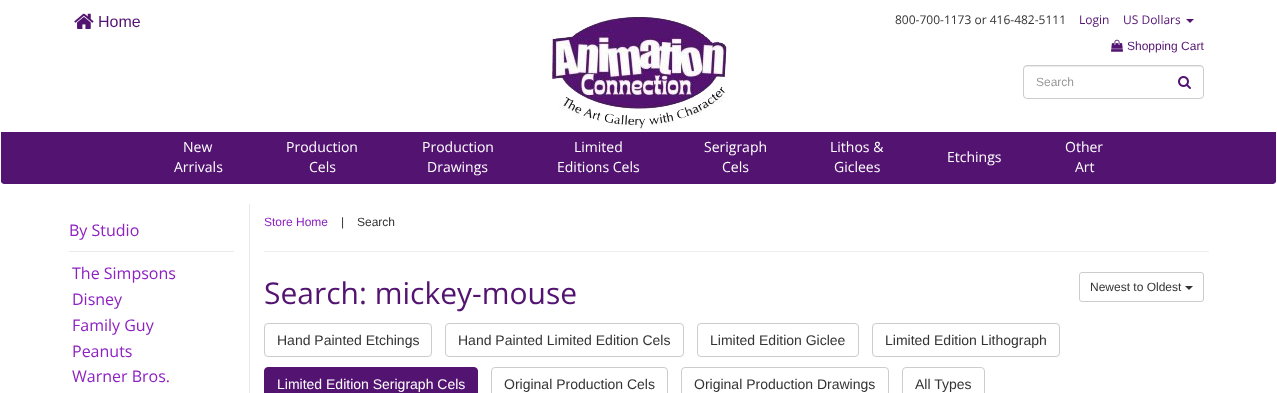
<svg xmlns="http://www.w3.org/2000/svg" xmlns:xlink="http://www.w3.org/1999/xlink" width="1277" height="393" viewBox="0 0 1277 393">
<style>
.cls-1{font:16px Liberation Sans;fill:#531371}
.cls-2{font:12px Open Sans;fill:#333333}
.cls-3{font:12px Open Sans;fill:#531371}
.cls-4{font:12px Liberation Sans;fill:#531371}
.cls-5{font:12px Liberation Sans;fill:#999999}
.cls-6{font:14px Open Sans;fill:#ffffff}
.cls-7{font:16px Open Sans;fill:#8e21c1}
.cls-8{font:12px Liberation Sans;fill:#8e21c1}
.cls-9{font:12px Liberation Sans;fill:#333333}
.cls-10{font:30px Open Sans;fill:#531371}
.cls-11{font:14px Liberation Sans;fill:#333333}
.cls-12{font:14px Liberation Sans;fill:#ffffff}
</style>
<rect width="100%" height="100%" fill="#ffffff"/>
<path fill="#531371" d="M4 184H1273C1274 184 1275 183 1276 182V181L1273 182H4L1 181V182C2 183 3 184 4 184Z"/>
<image xlink:href="image0.png" x="74" y="13" width="20" height="16"/>
<image xlink:href="image1.png" x="550" y="17" width="177" height="113"/>
<path fill="#531371" d="M1186 19H1194L1190 23Z"/>
<image xlink:href="image2.png" x="1111" y="39" width="12" height="13"/>
<path fill="#ececec" d="M1027 67H1200C1202 67 1203 68 1203 70V69C1203 67 1202 66 1200 66H1027C1025 66 1024 67 1024 69V70C1024 68 1025 67 1027 67Z"/>
<rect fill="none" stroke="#cccccc" x="1023.5" y="65.5" width="180" height="33" rx="3.5"/>
<image xlink:href="image3.png" x="1178" y="76" width="13" height="13"/>
<rect fill="#531371" x="1" y="132" width="1275" height="50"/>
<rect fill="#e9e9e9" x="69" y="251" width="165" height="1"/>
<rect fill="#e9e9e9" x="249" y="204" width="1" height="189"/>
<rect fill="#eeeeee" x="264" y="251" width="945" height="1"/>
<rect fill="none" stroke="#cccccc" x="1079.5" y="272.5" width="124" height="29" rx="2.5"/>
<path fill="#333333" d="M1185 286H1193L1189 290Z"/>
<rect fill="none" stroke="#cccccc" x="264.5" y="323.5" width="167" height="33" rx="3.5"/>
<rect fill="none" stroke="#cccccc" x="445.5" y="323.5" width="238" height="33" rx="3.5"/>
<rect fill="none" stroke="#cccccc" x="697.5" y="323.5" width="161" height="33" rx="3.5"/>
<rect fill="none" stroke="#cccccc" x="872.5" y="323.5" width="187" height="33" rx="3.5"/>
<rect fill="#531371" stroke="#531371" x="264.5" y="367.5" width="213" height="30" rx="3.5"/>
<rect fill="none" stroke="#cccccc" x="491.5" y="367.5" width="176" height="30" rx="3.5"/>
<rect fill="none" stroke="#cccccc" x="681.5" y="367.5" width="207" height="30" rx="3.5"/>
<rect fill="none" stroke="#cccccc" x="902.5" y="367.5" width="82" height="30" rx="3.5"/>
<text class="cls-1" x="98" y="27">Home</text>
<text class="cls-2" x="895" y="24">800-700-1173 or 416-482-5111</text>
<text class="cls-3" x="1079" y="24">Login</text>
<text class="cls-3" x="1123" y="24">US Dollars</text>
<text class="cls-4" x="1127" y="50">Shopping Cart</text>
<text class="cls-5" x="1036" y="86">Search</text>
<text class="cls-6" x="183" y="152">New</text>
<text class="cls-6" x="174" y="172">Arrivals</text>
<text class="cls-6" x="286" y="152">Production</text>
<text class="cls-6" x="309" y="172">Cels</text>
<text class="cls-6" x="422" y="152">Production</text>
<text class="cls-6" x="427" y="172">Drawings</text>
<text class="cls-6" x="574" y="152">Limited</text>
<text class="cls-6" x="557" y="172">Editions Cels</text>
<text class="cls-6" x="704" y="152">Serigraph</text>
<text class="cls-6" x="722" y="172">Cels</text>
<text class="cls-6" x="830" y="152">Lithos &amp;</text>
<text class="cls-6" x="834" y="172">Giclees</text>
<text class="cls-6" x="947" y="162">Etchings</text>
<text class="cls-6" x="1065" y="152">Other</text>
<text class="cls-6" x="1075" y="172">Art</text>
<text class="cls-7" x="69" y="236">By Studio</text>
<text class="cls-7"><tspan x="72" y="279">The Simpsons</tspan><tspan x="72" y="305">Disney</tspan><tspan x="72" y="331">Family Guy</tspan><tspan x="72" y="357">Peanuts</tspan><tspan x="72" y="382">Warner Bros.</tspan></text>
<text class="cls-8" x="264" y="226">Store Home</text>
<text class="cls-9" x="341" y="226">|</text>
<text class="cls-9" x="357" y="226">Search</text>
<text class="cls-10" x="264" y="304">Search: mickey-mouse</text>
<text class="cls-9" x="1090" y="291">Newest to Oldest</text>
<text class="cls-11" x="277" y="345">Hand Painted Etchings</text>
<text class="cls-11" x="458" y="345">Hand Painted Limited Edition Cels</text>
<text class="cls-11" x="710" y="345">Limited Edition Giclee</text>
<text class="cls-11" x="885" y="345">Limited Edition Lithograph</text>
<text class="cls-12" x="277" y="389">Limited Edition Serigraph Cels</text>
<text class="cls-11" x="504" y="389">Original Production Cels</text>
<text class="cls-11" x="694" y="389">Original Production Drawings</text>
<text class="cls-11" x="915" y="389">All Types</text>
</svg>
